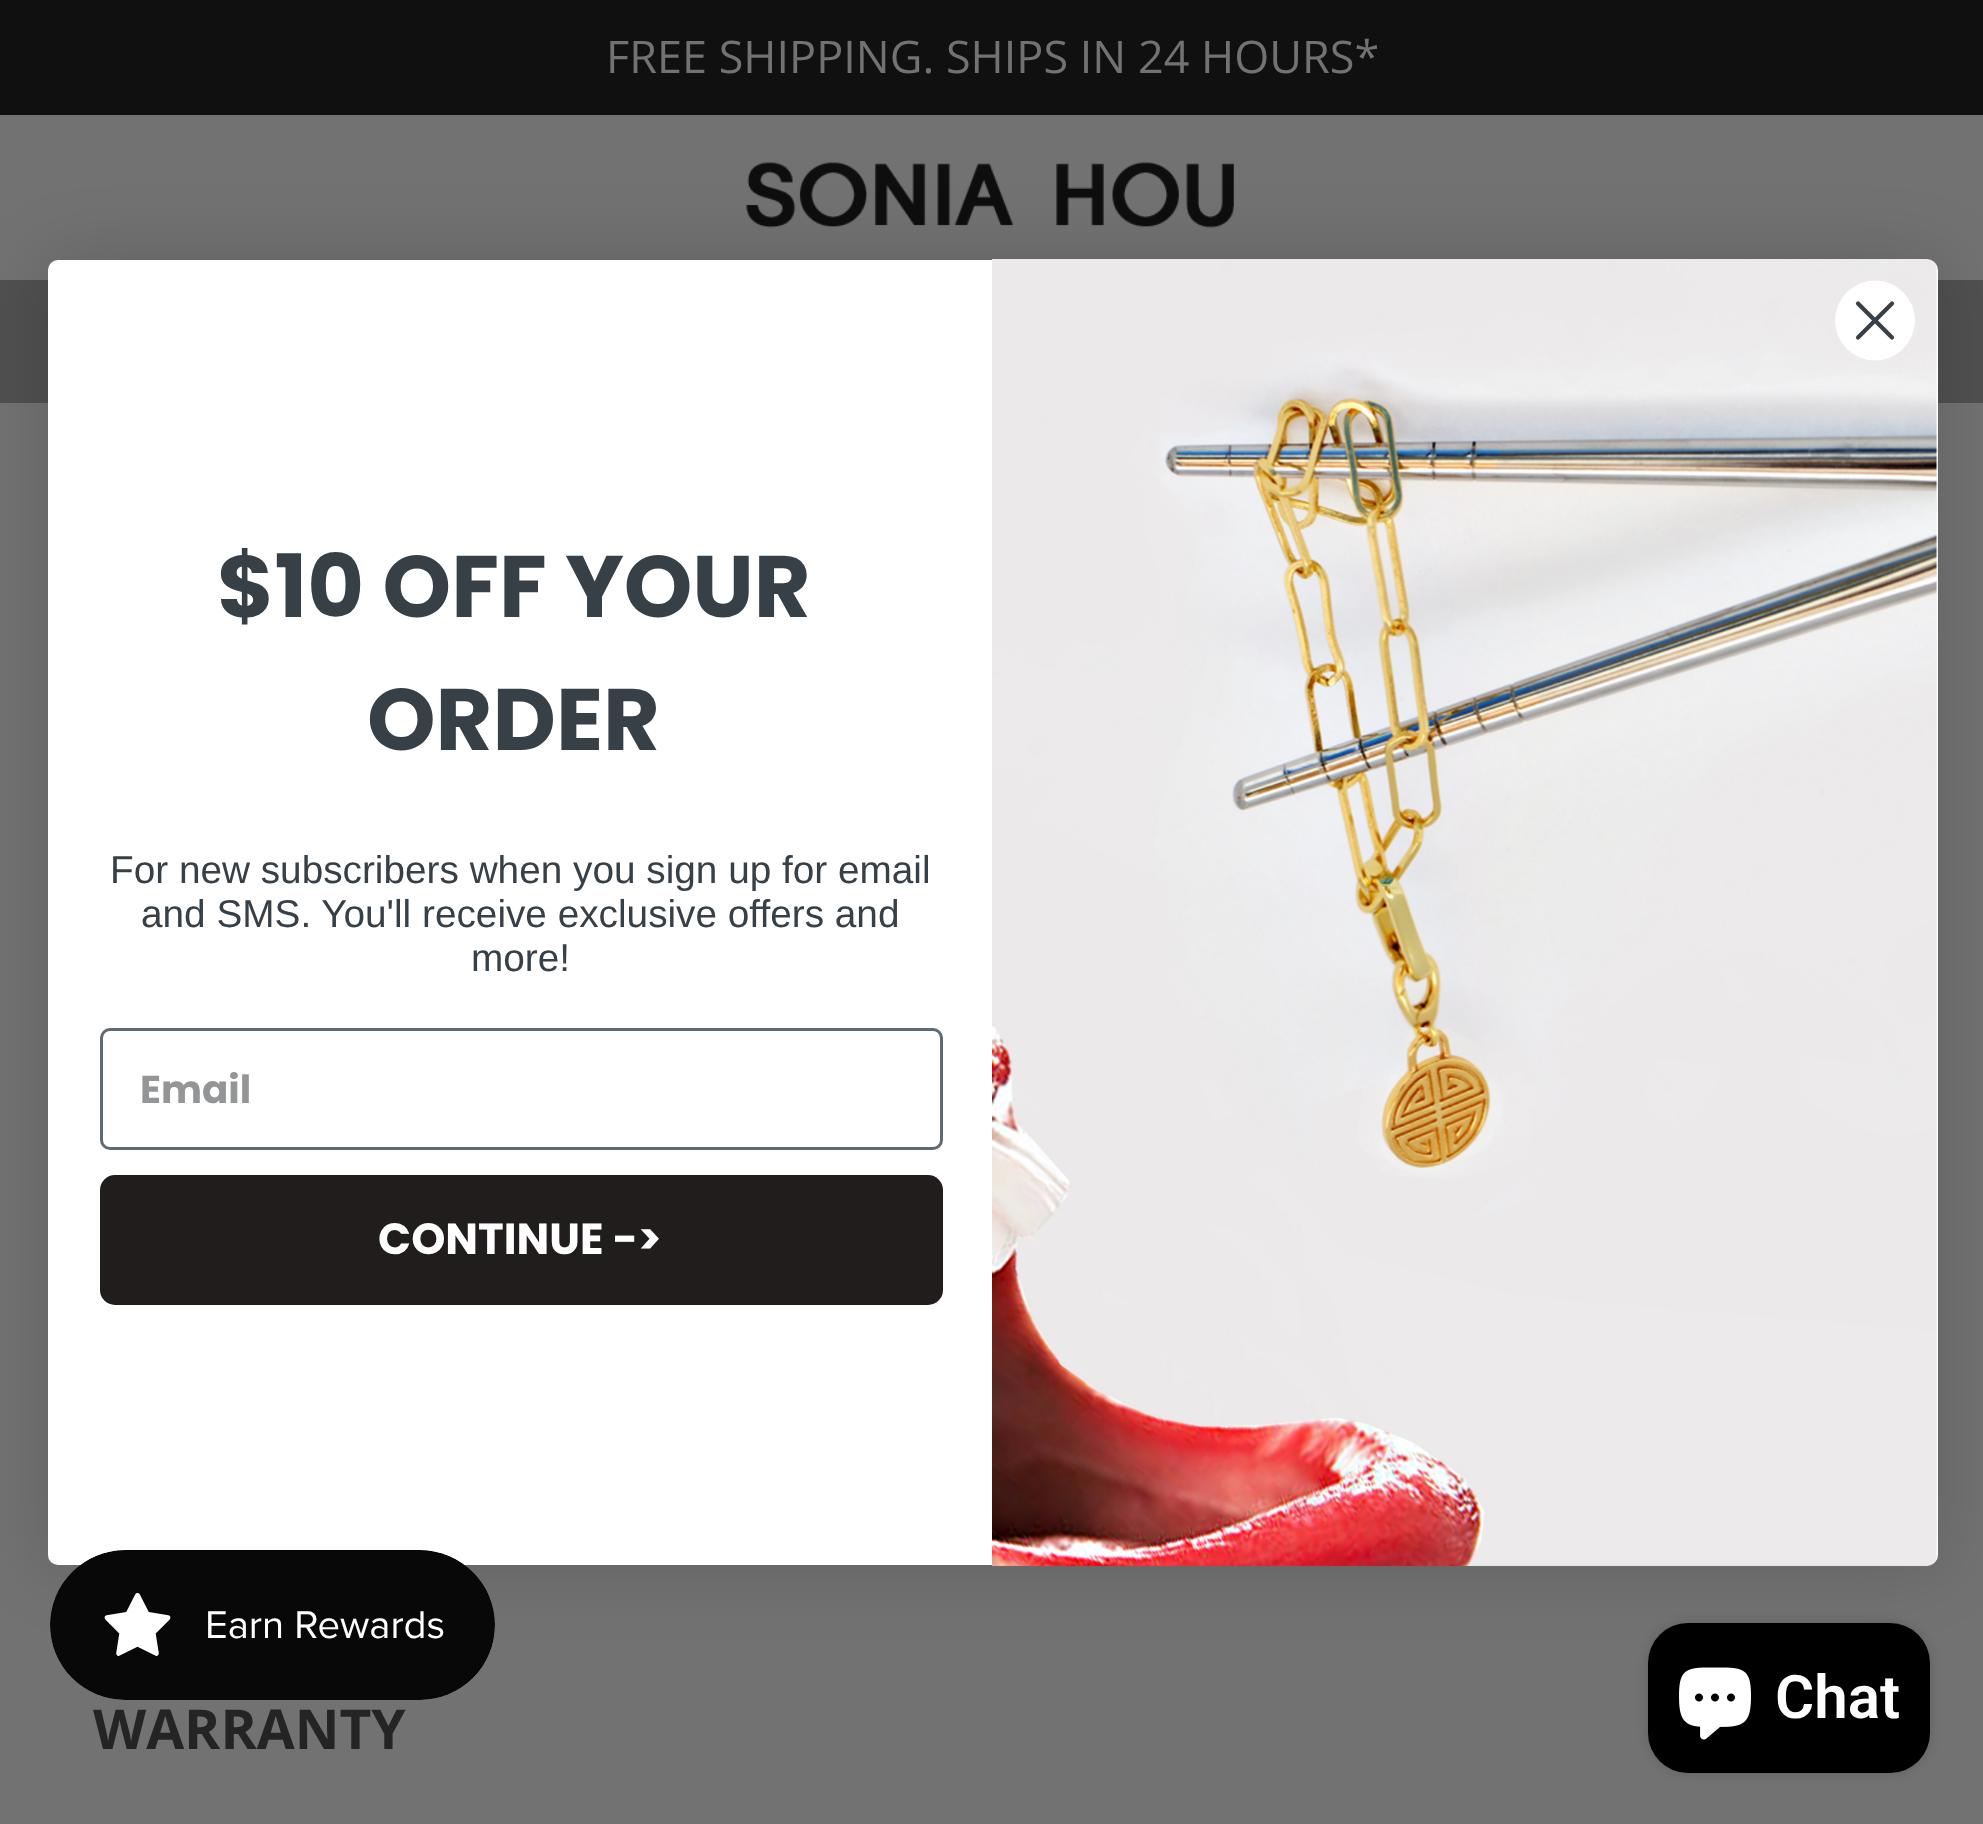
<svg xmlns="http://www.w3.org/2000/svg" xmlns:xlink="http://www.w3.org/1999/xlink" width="1983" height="1824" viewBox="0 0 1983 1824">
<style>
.cls-1{font:45px Open Sans;fill:#727272}
.cls-2{font:bold 55px Open Sans;fill:#242424}
.cls-3{font:bold 87.25px Poppins;fill:#373f47}
.cls-4{font:38.75px Liberation Sans;fill:#373f47}
.cls-5{font:bold 38.75px Poppins;fill:#949596}
.cls-6{font:bold 43.5px Poppins;fill:#ffffff}
.cls-7{font:600 60px Roboto;fill:#ffffff}
</style>
<rect width="100%" height="100%" fill="#727272"/>
<rect fill="#101010" x="0" y="0" width="1983" height="115"/>
<image xlink:href="image0.png" x="746" y="162" width="488" height="66"/>
<rect fill="#505050" x="0" y="280" width="1983" height="123"/>
<rect fill="#000000" fill-opacity="0.15" filter="blur(36.5px)" x="48" y="260" width="1890" height="1305" rx="10"/>
<rect fill="#ffffff" x="48" y="260" width="1890" height="1305" rx="10"/>
<image xlink:href="image1.png" x="992" y="259" width="946" height="1308"/>
<circle fill="#ffffff" cx="1875" cy="320.5" r="40"/>
<path fill="none" stroke="#373f47" stroke-width="4.2" stroke-linecap="round" stroke-linejoin="round" d="M1858 303.5L1892 337.5M1858 337.5L1892 303.5Z"/>
<rect fill="none" stroke="#606a72" stroke-width="3" x="101.5" y="1029.5" width="840" height="119" rx="8.5"/>
<rect fill="#211d1c" x="100" y="1175" width="843" height="130" rx="15"/>
<image xlink:href="image2.png" x="50" y="1550" width="445" height="150"/>
<rect fill="#000000" fill-opacity="0.15" filter="blur(6px)" x="1648" y="1623" width="282" height="150" rx="40"/>
<rect fill="#000000" x="1648" y="1623" width="282" height="150" rx="40"/>
<image xlink:href="image3.png" x="1679" y="1667" width="72" height="73"/>
<text class="cls-1" x="606" y="73">FREE SHIPPING. SHIPS IN 24 HOURS*</text>
<text class="cls-2" x="93" y="1749">WARRANTY</text>
<text class="cls-3" x="217" y="617">$10 OFF YOUR</text>
<text class="cls-3" x="367" y="750">ORDER</text>
<text class="cls-4" x="110" y="883">For new subscribers when you sign up for email</text>
<text class="cls-4" x="141" y="927">and SMS. You'll receive exclusive offers and</text>
<text class="cls-4" x="471" y="971">more!</text>
<text class="cls-5" x="140" y="1103">Email</text>
<text class="cls-6" x="378" y="1254">CONTINUE -&gt;</text>
<text class="cls-7" x="1775" y="1718">Chat</text>
</svg>
